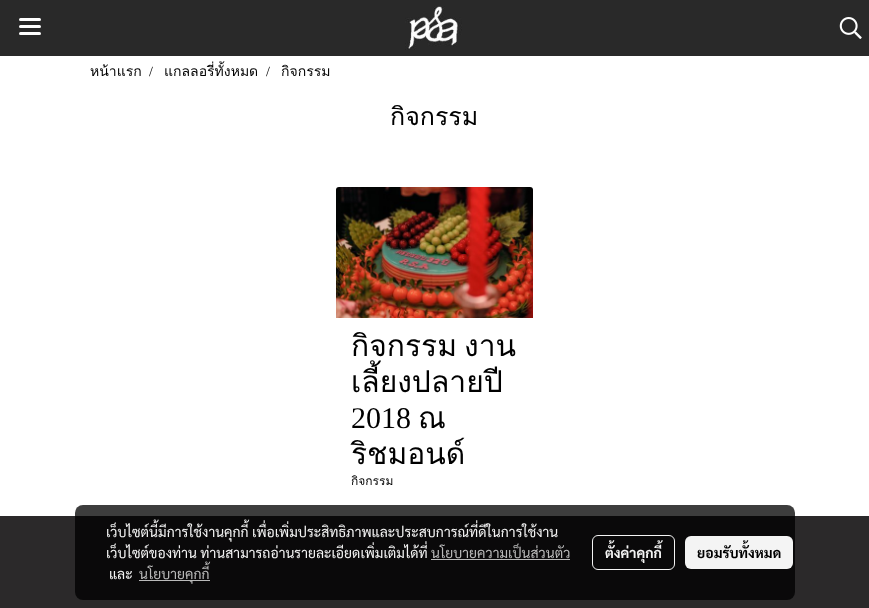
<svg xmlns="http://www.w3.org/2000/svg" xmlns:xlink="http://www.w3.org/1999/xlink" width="869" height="608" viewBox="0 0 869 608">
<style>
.cls-1{font:14px Loma;fill:#000000}
.cls-2{font:14px Liberation Serif;fill:#000000}
.cls-3{font:25px Loma;fill:#000000}
.cls-4{font:30px Loma;fill:#000000}
.cls-5{font:30px Liberation Serif;fill:#000000}
.cls-6{font:12px Loma;fill:#000000}
.cls-7{font:14px Sarabun;fill:#f4f4f4}
.cls-8{font:14px Sarabun;fill:#bababa}
.cls-9{font:bold 14px Sarabun;fill:#f4f4f4}
.cls-10{font:bold 14px Sarabun;fill:#000000}
</style>
<rect width="100%" height="100%" fill="#ffffff"/>
<rect fill="#292929" x="0" y="0" width="869" height="56"/>
<rect fill="#ffffff" x="19" y="25" width="22" height="3" rx="1.5"/>
<rect fill="#ffffff" x="19" y="18" width="22" height="3" rx="1.5"/>
<rect fill="#ffffff" x="19" y="32" width="22" height="3" rx="1.5"/>
<image xlink:href="image0.png" x="405" y="6" width="57" height="44"/>
<image xlink:href="image1.png" x="839" y="17" width="23" height="22"/>
<image xlink:href="image2.png" x="336" y="187" width="197" height="131"/>
<rect fill="#2b292a" x="0" y="516" width="869" height="92"/>
<rect fill="#000000" fill-opacity="0.76" x="75" y="505" width="720" height="95" rx="8"/>
<rect fill="#bababa" x="431" y="559" width="139" height="1"/>
<rect fill="#bababa" x="139" y="580" width="71" height="1"/>
<rect fill="none" stroke="#f4f4f4" x="592.5" y="535.5" width="82" height="34" rx="5.5"/>
<rect fill="#f4f4f4" x="685" y="536" width="108" height="33" rx="6"/>
<text class="cls-1" x="90" y="76">หน้าแรก</text>
<text class="cls-2" x="149" y="76">/</text>
<text class="cls-1" x="164" y="76">แกลลอรี่ทั้งหมด</text>
<text class="cls-2" x="266" y="76">/</text>
<text class="cls-1" x="281" y="76">กิจกรรม</text>
<text class="cls-3" x="390" y="125">กิจกรรม</text>
<text class="cls-4"><tspan x="351" y="356" word-spacing="-3">กิจกรรม งาน</tspan><tspan x="351" y="392">เลี้ยงปลายปี</tspan></text>
<text class="cls-5" x="351" y="428">2018</text>
<text class="cls-4" x="418" y="428">ณ</text>
<text class="cls-4" x="351" y="464">ริชมอนด์</text>
<text class="cls-6" x="351" y="485">กิจกรรม</text>
<text class="cls-7"><tspan x="106" y="537">เว็บไซต์นี้มีการใช้งานคุกกี้ เพื่อเพิ่มประสิทธิภาพและประสบการณ์ที่ดีในการใช้งาน</tspan><tspan x="106" y="558">เว็บไซต์ของท่าน ท่านสามารถอ่านรายละเอียดเพิ่มเติมได้ที่</tspan></text>
<text class="cls-8" x="431" y="558">นโยบายความเป็นส่วนตัว</text>
<text class="cls-7" x="109" y="579">และ</text>
<text class="cls-8" x="139" y="579">นโยบายคุกกี้</text>
<text class="cls-9" x="605" y="558">ตั้งค่าคุกกี้</text>
<text class="cls-10" x="697" y="558">ยอมรับทั้งหมด</text>
</svg>
